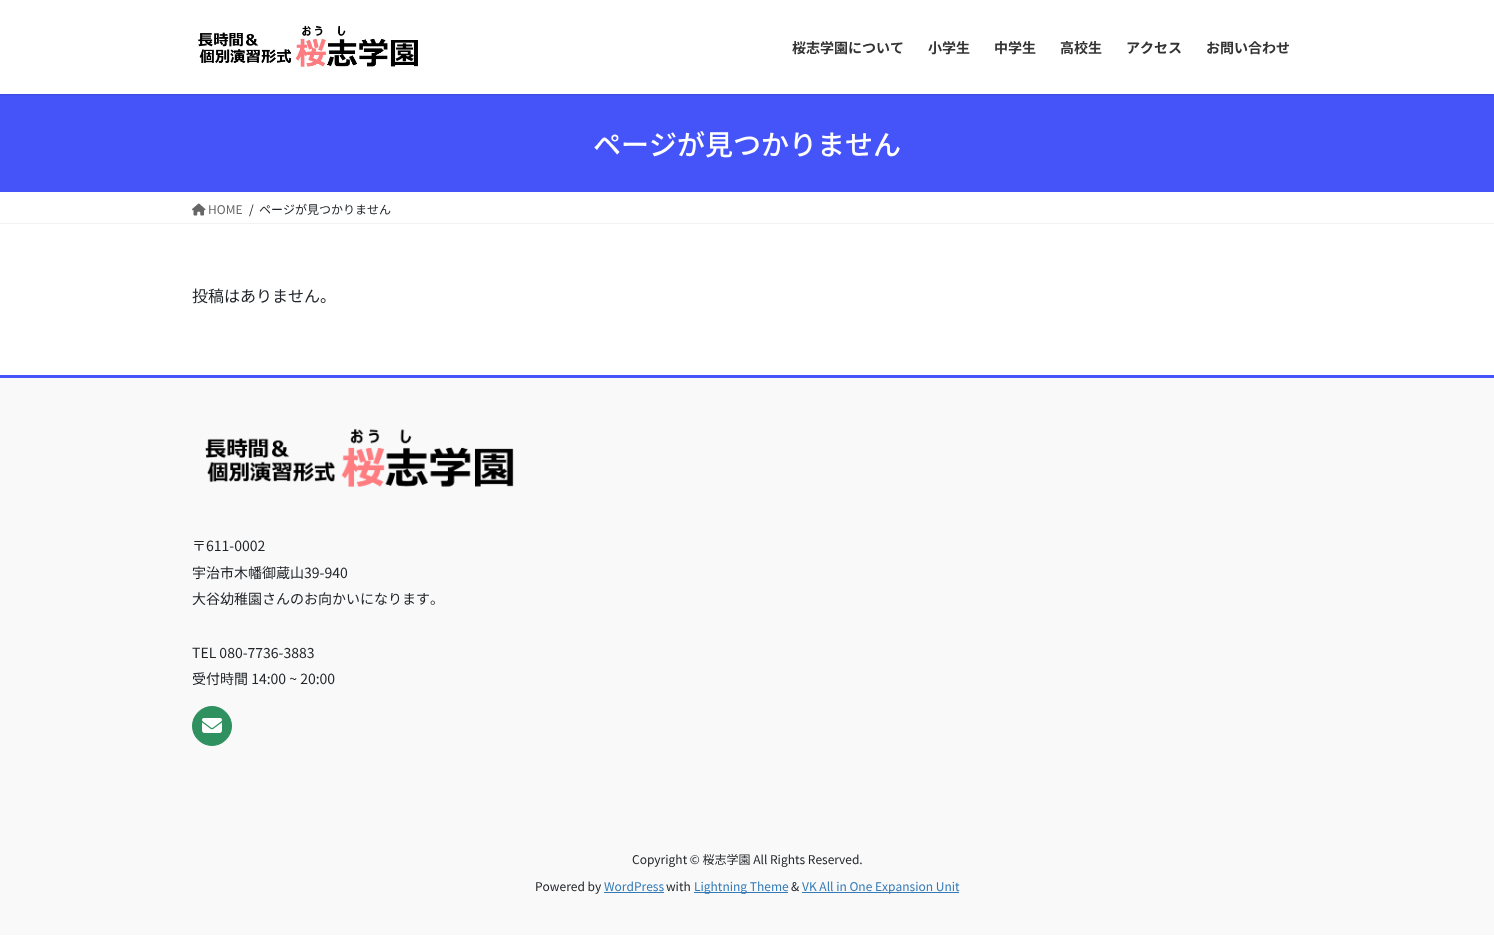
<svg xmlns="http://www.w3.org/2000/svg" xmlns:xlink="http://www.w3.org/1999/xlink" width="1494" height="941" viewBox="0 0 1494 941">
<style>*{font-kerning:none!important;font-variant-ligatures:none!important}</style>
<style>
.cls-1{font:bold 14px Noto Sans JP;fill:#333333}
.cls-2{font:500 28px Noto Sans JP;fill:#ffffff}
.cls-3{font:12px Noto Sans JP;fill:#666666}
.cls-4{font:12px Noto Sans JP;fill:#212529}
.cls-5{font:16px Noto Sans JP;fill:#212529}
.cls-6{font:14px Noto Sans JP;fill:#212529}
.cls-7{font:12px Noto Sans JP;fill:#337ab7}
</style>
<defs>
<clipPath id="clip1"><rect x="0" y="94" width="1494" height="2"/></clipPath>
</defs>
<rect width="100%" height="100%" fill="#ffffff"/>
<rect fill="#4554f9" x="0" y="94" width="1494" height="98"/>
<g clip-path="url(#clip1)">
<rect fill="#000000" fill-opacity="0.1" filter="blur(1.5px)" x="0" y="1" width="1494" height="94"/>
</g>
<image xlink:href="image0.png" x="198" y="25" width="220" height="42"/>
<rect fill="#f2f2f2" x="0" y="223" width="1494" height="1"/>
<image xlink:href="image1.png" x="192" y="203" width="14" height="13"/>
<rect fill="#f9f9f9" x="0" y="378" width="1494" height="557"/>
<rect fill="#4554f9" x="0" y="375" width="1494" height="3"/>
<image xlink:href="image2.png" x="205" y="428" width="309" height="59"/>
<circle fill="#2f915f" stroke="#2f915f" cx="212" cy="726" r="19.5"/>
<image xlink:href="image3.png" x="202" y="718" width="20" height="15"/>
<rect fill="#337ab7" x="604" y="892" width="60" height="1"/>
<rect fill="#337ab7" x="694" y="892" width="94" height="1"/>
<rect fill="#337ab7" x="802" y="892" width="157" height="1"/>
<text class="cls-1" x="792" y="53">桜志学園について</text>
<text class="cls-1" x="928" y="53">小学生</text>
<text class="cls-1" x="994" y="53">中学生</text>
<text class="cls-1" x="1060" y="53">高校生</text>
<text class="cls-1" x="1126" y="53">アクセス</text>
<text class="cls-1" x="1206" y="53">お問い合わせ</text>
<text class="cls-2" x="593" y="155">ページが見つかりません</text>
<text class="cls-3" x="208" y="214">HOME</text>
<text class="cls-4" x="249" y="214">/</text>
<text class="cls-4" x="259" y="214">ページが見つかりません</text>
<text class="cls-5" x="192" y="302">投稿はありません。</text>
<text class="cls-6"><tspan x="192" y="551">〒611-0002</tspan><tspan x="192" y="578">宇治市木幡御蔵山39-940</tspan><tspan x="192" y="604">大谷幼稚園さんのお向かいになります。</tspan></text>
<text class="cls-6"><tspan x="192" y="658">TEL 080-7736-3883</tspan><tspan x="192" y="684">受付時間 14:00 ~ 20:00</tspan></text>
<text class="cls-4" x="632" y="864">Copyright © 桜志学園 All Rights Reserved.</text>
<text class="cls-4" x="535" y="891">Powered by</text>
<text class="cls-7" x="604" y="891">WordPress</text>
<text class="cls-4" x="666" y="891">with</text>
<text class="cls-7" x="694" y="891">Lightning Theme</text>
<text class="cls-4" x="791" y="891">&amp;</text>
<text class="cls-7" x="802" y="891">VK All in One Expansion Unit</text>
</svg>
